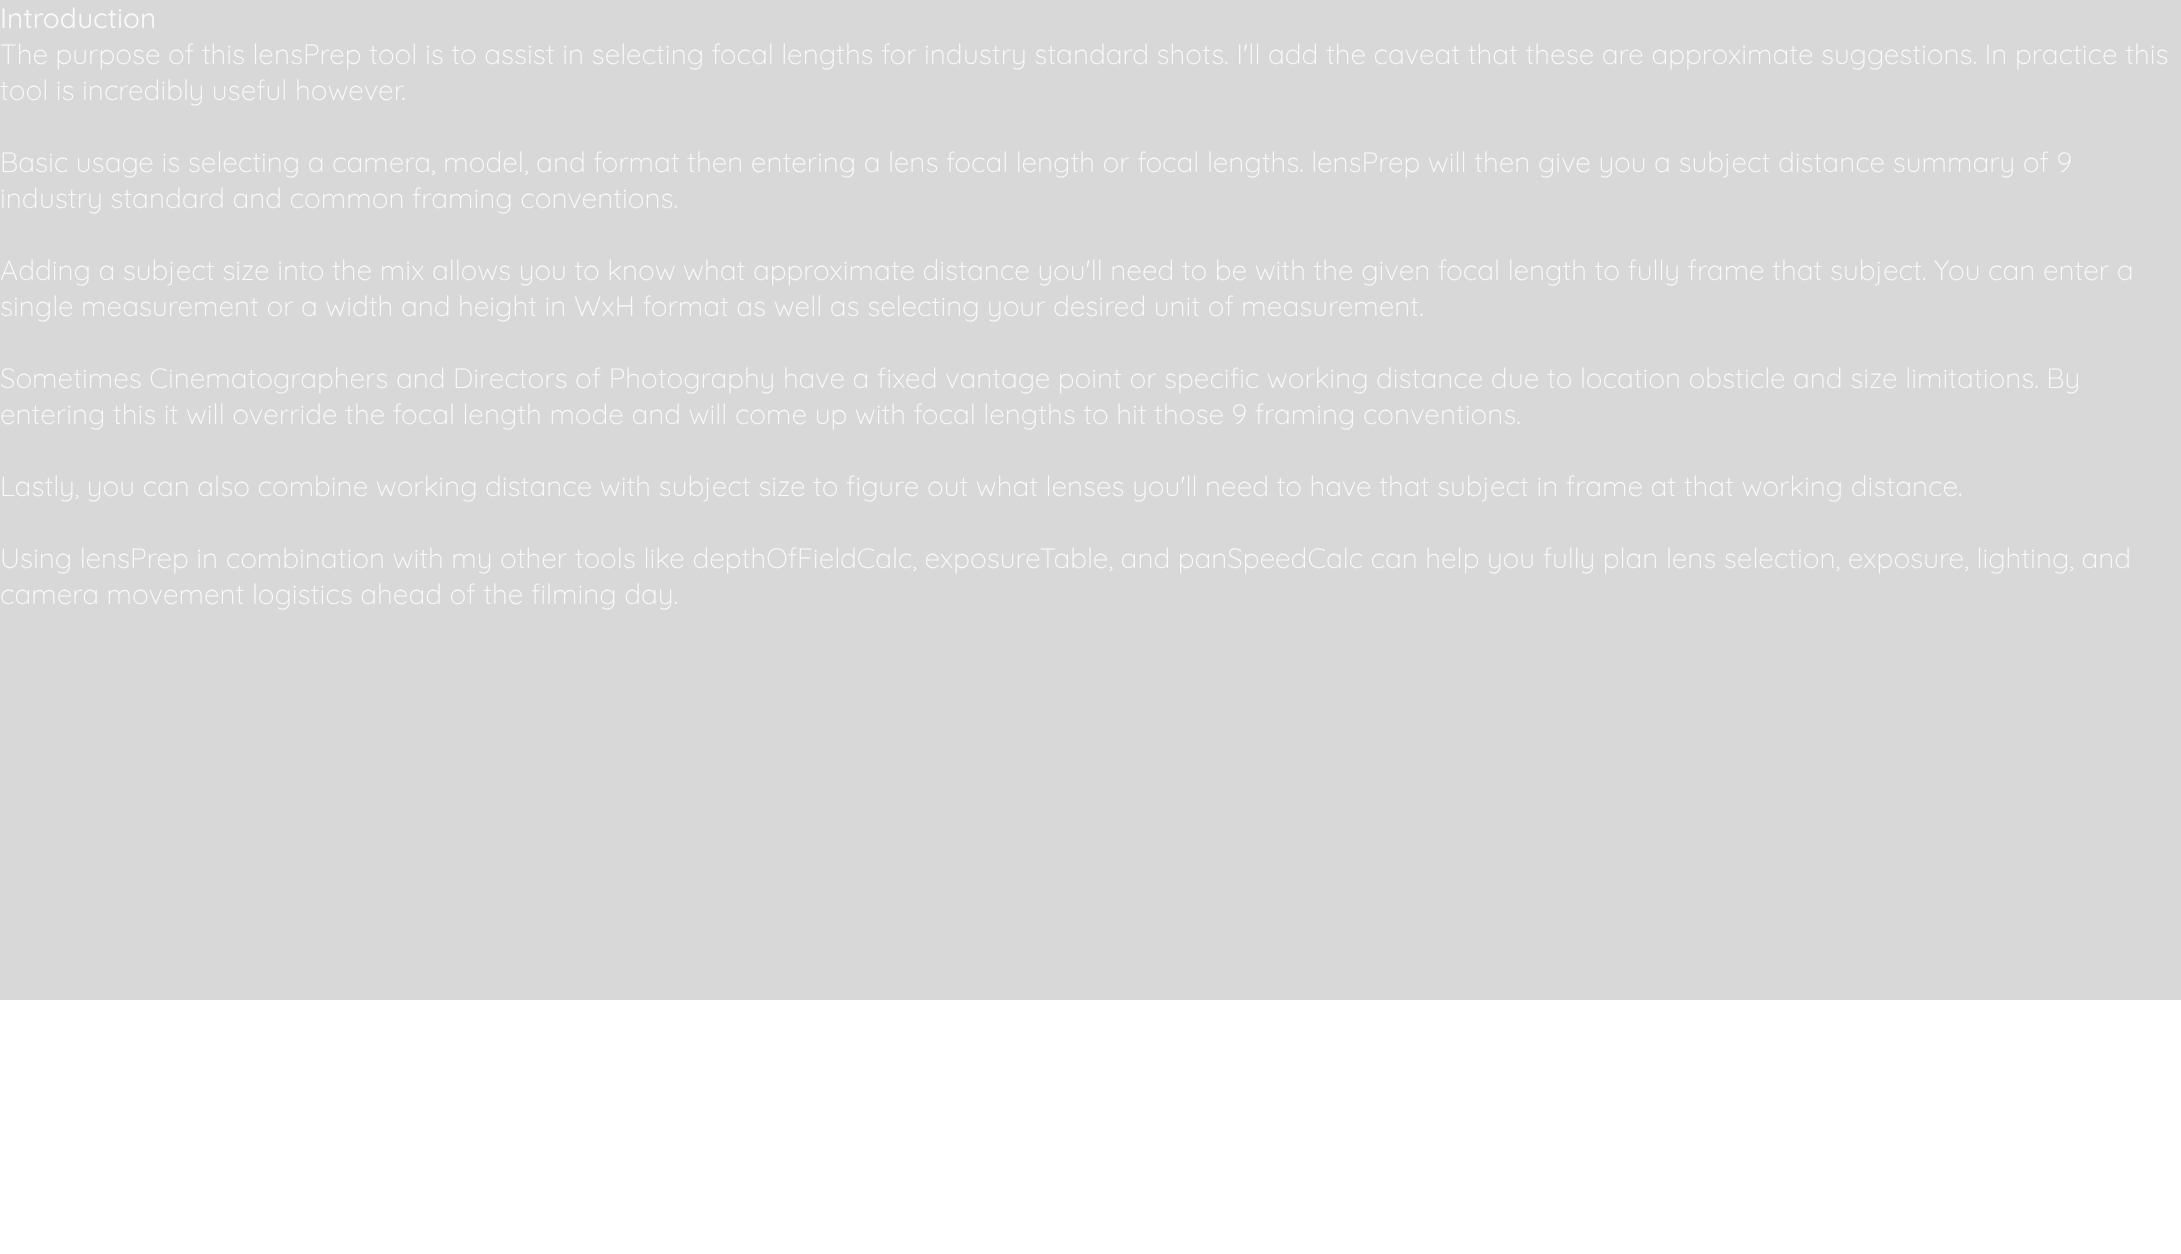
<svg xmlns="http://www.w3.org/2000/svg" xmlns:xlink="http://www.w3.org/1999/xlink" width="2181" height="1254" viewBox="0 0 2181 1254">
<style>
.cls-1{font:28px Quicksand;fill:#fafafa}
.cls-2{font:300 28px Quicksand;fill:#fafafa}
</style>
<rect width="100%" height="100%" fill="#ffffff"/>
<rect fill="#d8d8d8" x="0" y="0" width="2181" height="1000"/>
<text class="cls-1" x="0" y="28">Introduction</text>
<text class="cls-2"><tspan x="0" y="64">The purpose of this lensPrep tool is to assist in selecting focal lengths for industry standard shots. I'll add the caveat that these are approximate suggestions. In practice this</tspan><tspan x="0" y="100">tool is incredibly useful however.</tspan></text>
<text class="cls-2"><tspan x="0" y="172">Basic usage is selecting a camera, model, and format then entering a lens focal length or focal lengths. lensPrep will then give you a subject distance summary of 9</tspan><tspan x="0" y="208">industry standard and common framing conventions.</tspan></text>
<text class="cls-2"><tspan x="0" y="280">Adding a subject size into the mix allows you to know what approximate distance you'll need to be with the given focal length to fully frame that subject. You can enter a</tspan><tspan x="0" y="316">single measurement or a width and height in WxH format as well as selecting your desired unit of measurement.</tspan></text>
<text class="cls-2"><tspan x="0" y="388">Sometimes Cinematographers and Directors of Photography have a fixed vantage point or specific working distance due to location obsticle and size limitations. By</tspan><tspan x="0" y="424">entering this it will override the focal length mode and will come up with focal lengths to hit those 9 framing conventions.</tspan></text>
<text class="cls-2" x="0" y="496">Lastly, you can also combine working distance with subject size to figure out what lenses you'll need to have that subject in frame at that working distance.</text>
<text class="cls-2"><tspan x="0" y="568">Using lensPrep in combination with my other tools like depthOfFieldCalc, exposureTable, and panSpeedCalc can help you fully plan lens selection, exposure, lighting, and</tspan><tspan x="0" y="604">camera movement logistics ahead of the filming day.</tspan></text>
</svg>
